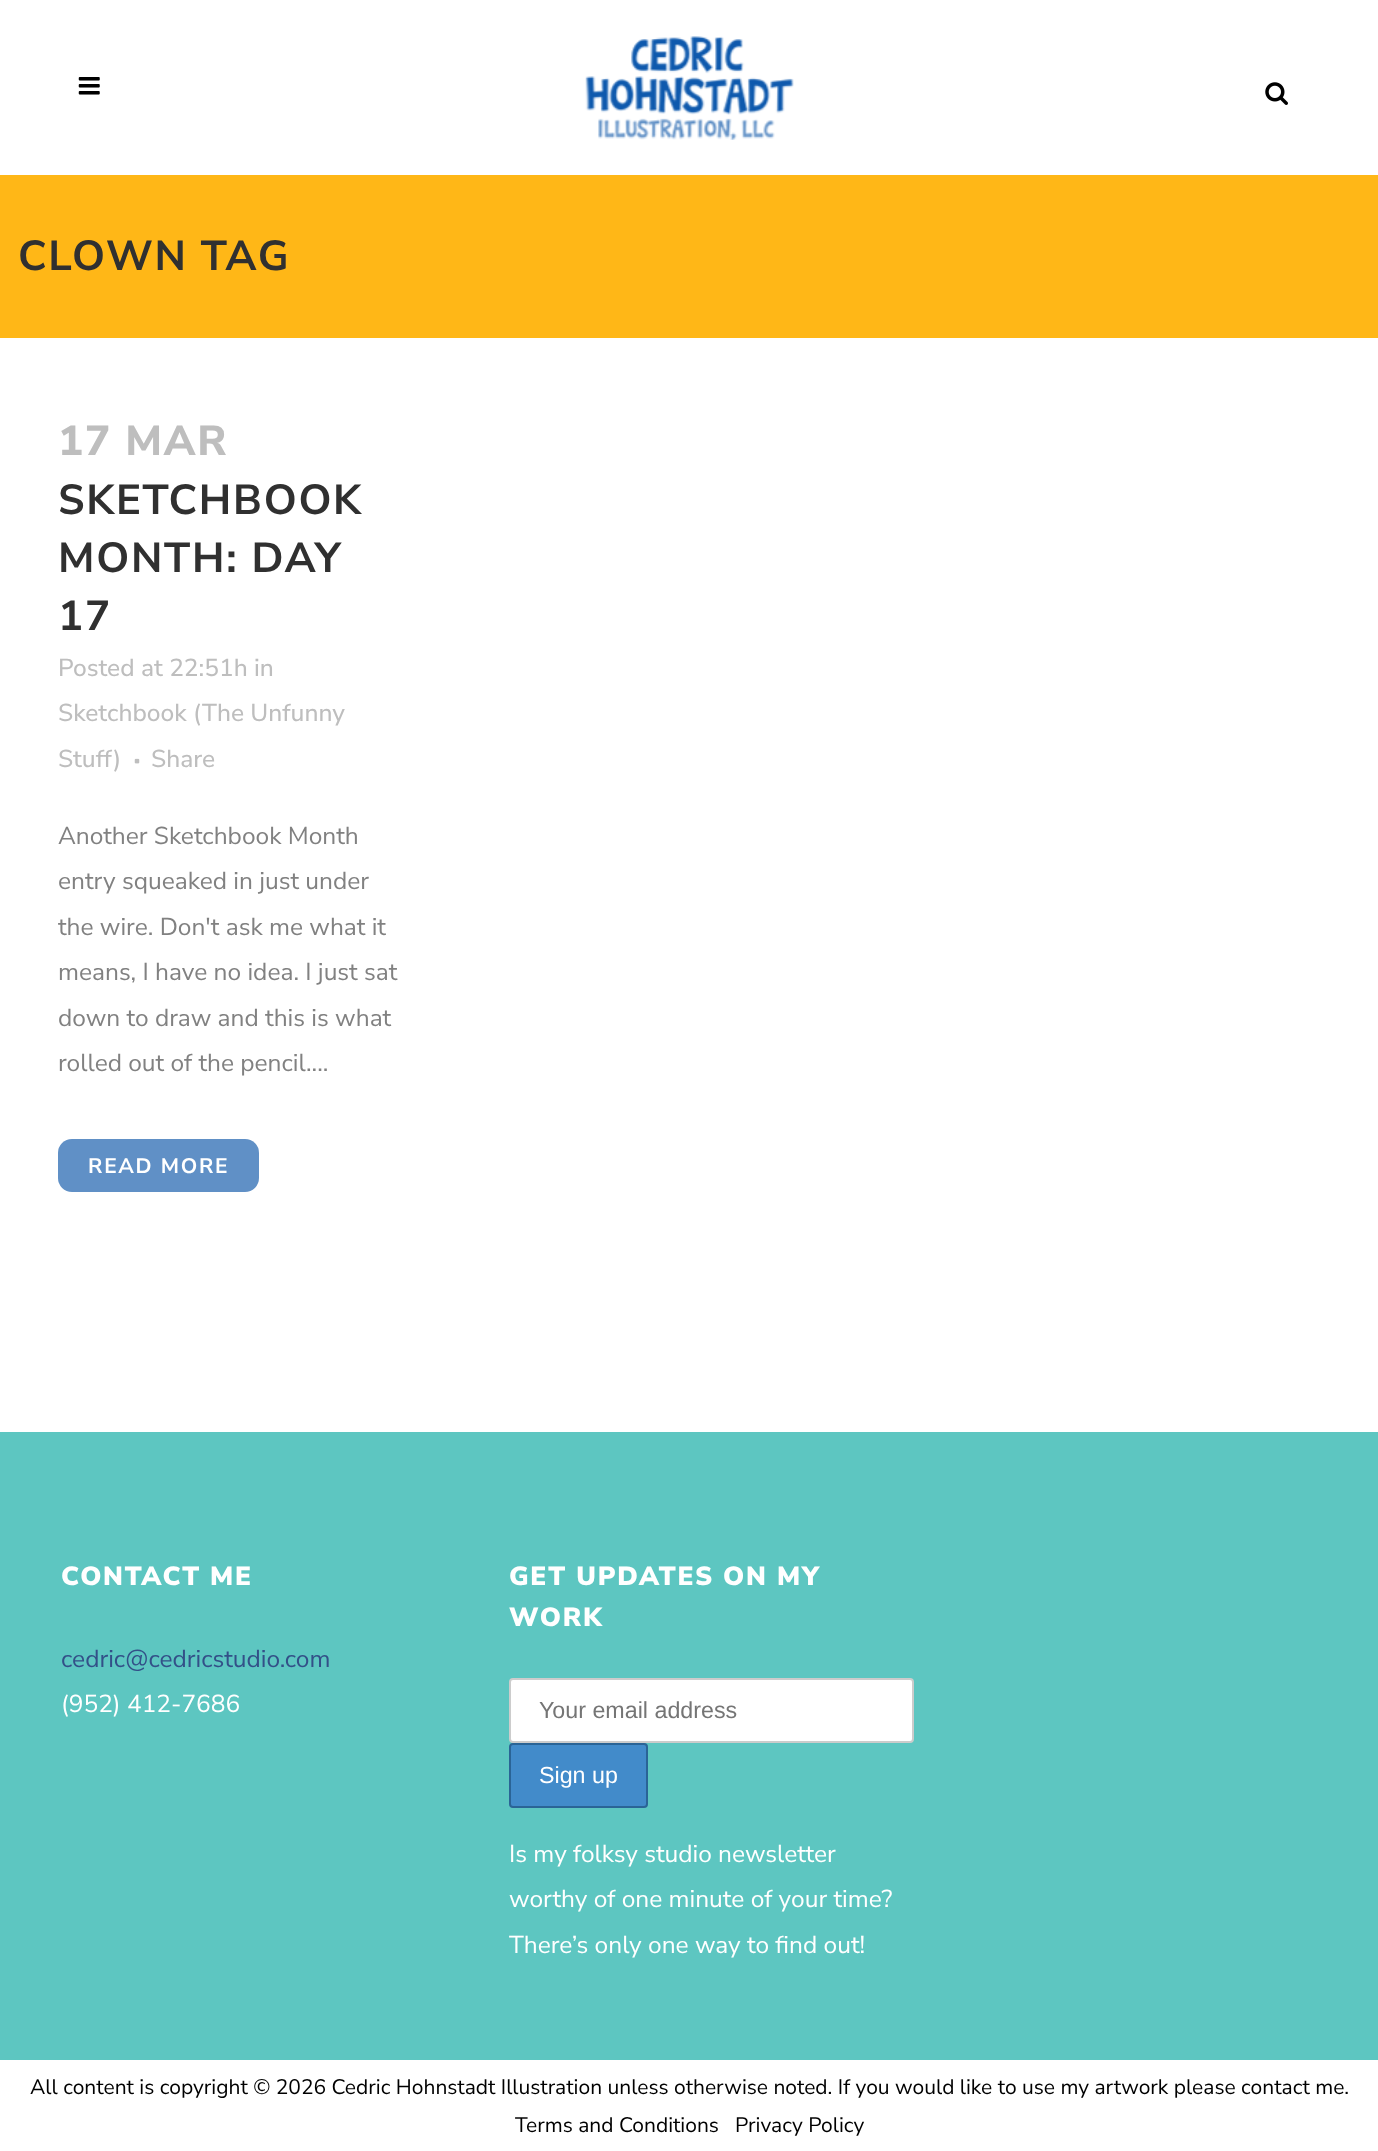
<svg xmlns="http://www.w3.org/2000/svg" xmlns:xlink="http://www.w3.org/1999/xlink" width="1378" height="2151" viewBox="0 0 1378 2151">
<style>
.cls-1{font:bold 42px Nunito Sans;letter-spacing:1.75px;fill:#303030}
.cls-2{font:800 42px Nunito Sans;letter-spacing:1.75px;fill:#bebebe}
.cls-3{font:500 24.5px Nunito Sans;fill:#bebebe}
.cls-4{font:24.5px Nunito Sans;fill:#818181}
.cls-5{font:bold 21px Nunito Sans;letter-spacing:1.75px;fill:#ffffff}
.cls-6{font:900 26.25px Nunito Sans;letter-spacing:1.75px;fill:#ffffff}
.cls-7{font:24.5px Nunito Sans;fill:#335088}
.cls-8{font:24.5px Nunito Sans;fill:#ffffff}
.cls-9{font:23.25px Liberation Sans;fill:#757575}
.cls-10{font:23.25px Liberation Sans;fill:#ffffff}
.cls-11{font:21px Nunito Sans;fill:#000000}
</style>
<rect width="100%" height="100%" fill="#ffffff"/>
<image xlink:href="image0.png" x="78" y="77" width="22" height="18"/>
<image xlink:href="image1.png" x="585" y="36" width="209" height="104"/>
<image xlink:href="image2.png" x="1265" y="82" width="23" height="23"/>
<rect fill="#ffb717" x="0" y="175" width="1378" height="163"/>
<image xlink:href="image3.png" x="134" y="758" width="6" height="6"/>
<rect fill="#6090c6" x="58" y="1139" width="201" height="53" rx="14"/>
<rect fill="#5dc6c1" x="0" y="1432" width="1378" height="628"/>
<rect fill="#ffffff" stroke="#cccccc" stroke-width="2" x="510" y="1679" width="403" height="63" rx="3"/>
<rect fill="#428bca" stroke="#2a6496" stroke-width="2" x="510" y="1744" width="137" height="63" rx="3"/>
<text class="cls-1" x="18" y="270">CLOWN TAG</text>
<text class="cls-2" x="58" y="455">17 MAR</text>
<text class="cls-1"><tspan x="58" y="514">SKETCHBOOK</tspan><tspan x="58" y="572">MONTH: DAY</tspan><tspan x="58" y="630">17</tspan></text>
<text class="cls-3"><tspan x="58" y="676">Posted at 22:51h in</tspan><tspan x="58" y="721">Sketchbook (The Unfunny</tspan><tspan x="58" y="767">Stuff)</tspan></text>
<text class="cls-3" x="151" y="767">Share</text>
<text class="cls-4"><tspan x="58" y="844">Another Sketchbook Month</tspan><tspan x="58" y="889">entry squeaked in just under</tspan><tspan x="58" y="935">the wire. Don't ask me what it</tspan><tspan x="58" y="980">means, I have no idea. I just sat</tspan><tspan x="58" y="1026">down to draw and this is what</tspan><tspan x="58" y="1071">rolled out of the pencil....</tspan></text>
<text class="cls-5" x="88" y="1173">READ MORE</text>
<text class="cls-6" x="61" y="1585">CONTACT ME</text>
<text class="cls-7" x="61" y="1667">cedric@cedricstudio.com</text>
<text class="cls-8" x="61" y="1712">(952) 412-7686</text>
<text class="cls-6"><tspan x="509" y="1585">GET UPDATES ON MY</tspan><tspan x="509" y="1626">WORK</tspan></text>
<text class="cls-9" x="539" y="1718">Your email address</text>
<text class="cls-10" x="539" y="1783">Sign up</text>
<text class="cls-8"><tspan x="509" y="1862">Is my folksy studio newsletter</tspan><tspan x="509" y="1907">worthy of one minute of your time?</tspan><tspan x="509" y="1953">There’s only one way to find out!</tspan></text>
<text class="cls-11" x="30" y="2094">All content is copyright © 2026 Cedric Hohnstadt Illustration unless otherwise noted. If you would like to use my artwork please contact me.</text>
<text class="cls-11" x="515" y="2132">Terms and Conditions</text>
<text class="cls-11" x="735" y="2132">Privacy Policy</text>
</svg>
